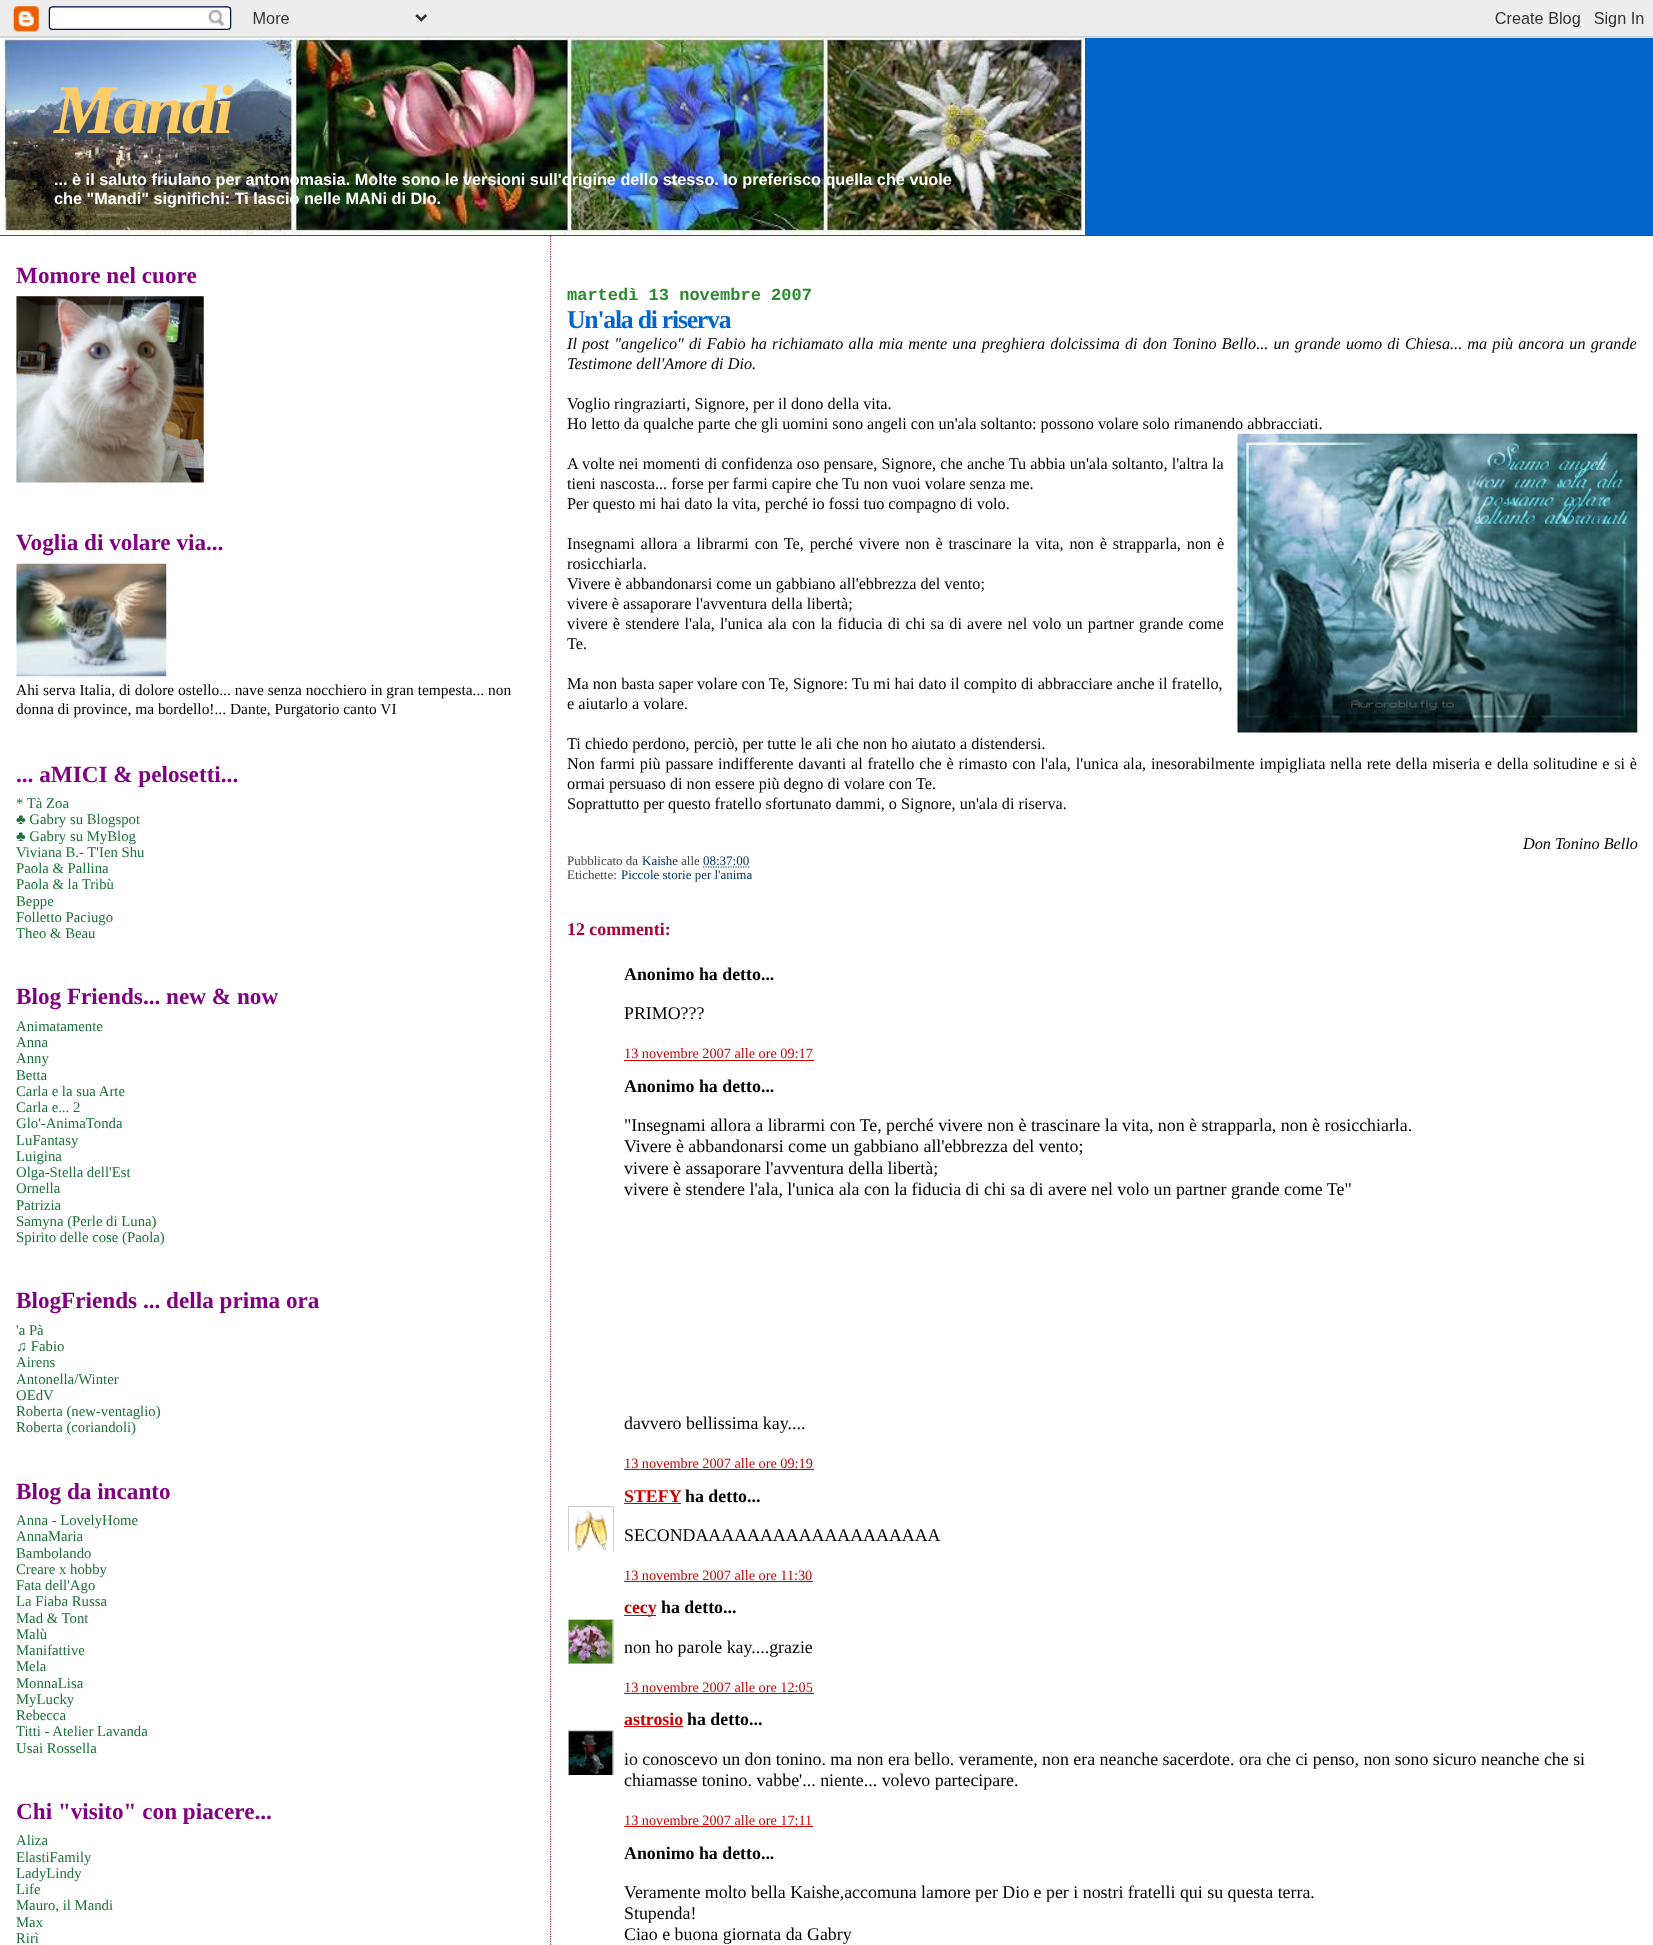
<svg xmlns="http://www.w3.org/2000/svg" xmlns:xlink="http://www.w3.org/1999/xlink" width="1653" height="1945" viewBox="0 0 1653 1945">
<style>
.cls-1{font:italic bold 69.5px Liberation Serif;letter-spacing:-2.5px;fill:#ffcc66}
.cls-2{font:bold 16.25px Liberation Sans;fill:#ffffff}
.cls-3{font:bold 23.2px Liberation Serif;fill:#800080}
.cls-4{font:15.45px Liberation Serif;fill:#000000}
.cls-5{font:14.75px Liberation Serif;fill:#1b703a}
.cls-6{font:bold 17px Liberation Mono;fill:#2d8930}
.cls-7{font:bold 25.75px Liberation Serif;letter-spacing:-1.25px;fill:#0066cc}
.cls-8{font:italic 16.25px Liberation Serif;fill:#000000}
.cls-9{font:16.25px Liberation Serif;fill:#000000}
.cls-10{font:13px Liberation Serif;fill:#444444}
.cls-11{font:13px Liberation Serif;fill:#003366}
.cls-12{font:bold 17.88px Liberation Serif;fill:#aa0033}
.cls-13{font:bold 17.88px Liberation Serif;fill:#000000}
.cls-14{font:17.88px Liberation Serif;fill:#000000}
.cls-15{font:14.25px Liberation Serif;fill:#cc0000}
.cls-16{font:bold 17.88px Liberation Serif;fill:#cc0000}
</style>
<defs>
<clipPath id="clip1"><rect x="568" y="1506" width="46" height="45"/></clipPath>
<clipPath id="clip2"><rect x="568" y="1619" width="46" height="45"/></clipPath>
<clipPath id="clip3"><rect x="568" y="1730" width="46" height="45"/></clipPath>
</defs>
<rect width="100%" height="100%" fill="#ffffff"/>
<image xlink:href="image0.png" x="0" y="0" width="1653" height="38"/>
<rect fill="#0066cc" x="1" y="38" width="1652" height="198"/>
<path fill="none" stroke="#9d1961" stroke-width="1.2" stroke-dasharray="1.25 1.25" d="M0 235.5H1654"/>
<image xlink:href="image1.png" x="0" y="38" width="1085" height="197"/>
<image xlink:href="image2.png" x="16" y="296" width="188" height="187"/>
<image xlink:href="image3.png" x="16" y="563" width="151" height="114"/>
<path fill="none" stroke="#9d1961" stroke-width="1.2" stroke-dasharray="1.25 1.25" d="M550.5 236V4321"/>
<image xlink:href="image4.png" x="1237" y="433" width="401" height="300"/>
<path fill="none" stroke="#003366" stroke-width="1.2" stroke-dasharray="1.25 1.25" d="M703 867H749.5"/>
<rect fill="#cc0000" x="624" y="1060" width="190" height="1"/>
<rect fill="#cc0000" x="624" y="1469" width="190" height="1"/>
<rect fill="#cc0000" x="624" y="1503" width="57" height="1"/>
<g clip-path="url(#clip1)">
<rect fill="none" stroke="#cccccc" x="568.5" y="1506.5" width="45" height="46"/>
</g>
<image xlink:href="image5.png" x="575" y="1510" width="32" height="41"/>
<rect fill="#cc0000" x="624" y="1581" width="189" height="1"/>
<rect fill="#cc0000" x="624" y="1615" width="32" height="1"/>
<g clip-path="url(#clip2)">
<rect fill="none" stroke="#cccccc" x="568.5" y="1619.5" width="45" height="45"/>
</g>
<image xlink:href="image6.png" x="568" y="1620" width="45" height="44"/>
<rect fill="#cc0000" x="624" y="1693" width="190" height="1"/>
<rect fill="#cc0000" x="624" y="1726" width="59" height="1"/>
<g clip-path="url(#clip3)">
<rect fill="none" stroke="#cccccc" x="568.5" y="1730.5" width="45" height="45"/>
</g>
<image xlink:href="image7.png" x="568" y="1731" width="45" height="44"/>
<rect fill="#cc0000" x="624" y="1826" width="189" height="1"/>
<text class="cls-1" x="54" y="133">Mandi</text>
<text class="cls-2"><tspan x="54" y="185">... è il saluto friulano per antonomasia. Molte sono le versioni sull'origine dello stesso. Io preferisco quella che vuole</tspan><tspan x="54" y="204">che "Mandi" significhi: Ti lascio nelle MANi di DIo.</tspan></text>
<text class="cls-3" x="16" y="283">Momore nel cuore</text>
<text class="cls-3" x="16" y="550">Voglia di volare via...</text>
<text class="cls-4"><tspan x="16" y="695">Ahi serva Italia, di dolore ostello... nave senza nocchiero in gran tempesta... non</tspan><tspan x="16" y="714">donna di province, ma bordello!... Dante, Purgatorio canto VI</tspan></text>
<text class="cls-3" x="16" y="782">... aMICI &amp; pelosetti...</text>
<text class="cls-5"><tspan x="16" y="808">* Tà Zoa</tspan><tspan x="16" y="824">♣ Gabry su Blogspot</tspan><tspan x="16" y="841">♣ Gabry su MyBlog</tspan><tspan x="16" y="857">Viviana B.- T'Ien Shu</tspan><tspan x="16" y="873">Paola &amp; Pallina</tspan><tspan x="16" y="889">Paola &amp; la Tribù</tspan><tspan x="16" y="906">Beppe</tspan><tspan x="16" y="922">Folletto Paciugo</tspan><tspan x="16" y="938">Theo &amp; Beau</tspan></text>
<text class="cls-3" x="16" y="1004">Blog Friends... new &amp; now</text>
<text class="cls-5"><tspan x="16" y="1031">Animatamente</tspan><tspan x="16" y="1047">Anna</tspan><tspan x="16" y="1063">Anny</tspan><tspan x="16" y="1080">Betta</tspan><tspan x="16" y="1096">Carla e la sua Arte</tspan><tspan x="16" y="1112">Carla e... 2</tspan><tspan x="16" y="1128">Glo'-AnimaTonda</tspan><tspan x="16" y="1145">LuFantasy</tspan><tspan x="16" y="1161">Luigina</tspan><tspan x="16" y="1177">Olga-Stella dell'Est</tspan><tspan x="16" y="1193">Ornella</tspan><tspan x="16" y="1210">Patrizia</tspan><tspan x="16" y="1226">Samyna (Perle di Luna)</tspan><tspan x="16" y="1242">Spirito delle cose (Paola)</tspan></text>
<text class="cls-3" x="16" y="1308">BlogFriends ... della prima ora</text>
<text class="cls-5"><tspan x="16" y="1335">'a Pà</tspan><tspan x="16" y="1351">♫ Fabio</tspan><tspan x="16" y="1367">Airens</tspan><tspan x="16" y="1384">Antonella/Winter</tspan><tspan x="16" y="1400">OEdV</tspan><tspan x="16" y="1416">Roberta (new-ventaglio)</tspan><tspan x="16" y="1432">Roberta (coriandoli)</tspan></text>
<text class="cls-3" x="16" y="1499">Blog da incanto</text>
<text class="cls-5"><tspan x="16" y="1525">Anna - LovelyHome</tspan><tspan x="16" y="1541">AnnaMaria</tspan><tspan x="16" y="1558">Bambolando</tspan><tspan x="16" y="1574">Creare x hobby</tspan><tspan x="16" y="1590">Fata dell'Ago</tspan><tspan x="16" y="1606">La Fiaba Russa</tspan><tspan x="16" y="1623">Mad &amp; Tont</tspan><tspan x="16" y="1639">Malù</tspan><tspan x="16" y="1655">Manifattive</tspan><tspan x="16" y="1671">Mela</tspan><tspan x="16" y="1688">MonnaLisa</tspan><tspan x="16" y="1704">MyLucky</tspan><tspan x="16" y="1720">Rebecca</tspan><tspan x="16" y="1736">Titti - Atelier Lavanda</tspan><tspan x="16" y="1753">Usai Rossella</tspan></text>
<text class="cls-3" x="16" y="1819">Chi "visito" con piacere...</text>
<text class="cls-5"><tspan x="16" y="1845">Aliza</tspan><tspan x="16" y="1862">ElastiFamily</tspan><tspan x="16" y="1878">LadyLindy</tspan><tspan x="16" y="1894">Life</tspan><tspan x="16" y="1910">Mauro, il Mandi</tspan><tspan x="16" y="1927">Max</tspan><tspan x="16" y="1943">Rirì</tspan></text>
<text class="cls-6" x="567" y="300">martedì 13 novembre 2007</text>
<text class="cls-7" x="567" y="328">Un'ala di riserva</text>
<text class="cls-8"><tspan x="567" y="349" word-spacing="1.05">Il post "angelico" di Fabio ha richiamato alla mia mente una preghiera dolcissima di don Tonino Bello... un grande uomo di Chiesa... ma più ancora un grande</tspan><tspan x="567" y="369">Testimone dell'Amore di Dio.</tspan></text>
<text class="cls-9"><tspan x="567" y="409">Voglio ringraziarti, Signore, per il dono della vita.</tspan><tspan x="567" y="429">Ho letto da qualche parte che gli uomini sono angeli con un'ala soltanto: possono volare solo rimanendo abbracciati.</tspan></text>
<text class="cls-9"><tspan x="567" y="469" word-spacing="0.1">A volte nei momenti di confidenza oso pensare, Signore, che anche Tu abbia un'ala soltanto, l'altra la</tspan><tspan x="567" y="489">tieni nascosta... forse per farmi capire che Tu non vuoi volare senza me.</tspan><tspan x="567" y="509">Per questo mi hai dato la vita, perché io fossi tuo compagno di volo.</tspan></text>
<text class="cls-9"><tspan x="567" y="549" word-spacing="1.8">Insegnami allora a librarmi con Te, perché vivere non è trascinare la vita, non è strapparla, non è</tspan><tspan x="567" y="569">rosicchiarla.</tspan><tspan x="567" y="589">Vivere è abbandonarsi come un gabbiano all'ebbrezza del vento;</tspan><tspan x="567" y="609">vivere è assaporare l'avventura della libertà;</tspan><tspan x="567" y="629" word-spacing="1.1">vivere è stendere l'ala, l'unica ala con la fiducia di chi sa di avere nel volo un partner grande come</tspan><tspan x="567" y="649">Te.</tspan></text>
<text class="cls-9"><tspan x="567" y="689">Ma non basta saper volare con Te, Signore: Tu mi hai dato il compito di abbracciare anche il fratello,</tspan><tspan x="567" y="709">e aiutarlo a volare.</tspan></text>
<text class="cls-9"><tspan x="567" y="749">Ti chiedo perdono, perciò, per tutte le ali che non ho aiutato a distendersi.</tspan><tspan x="567" y="769" word-spacing="0.75">Non farmi più passare indifferente davanti al fratello che è rimasto con l'ala, l'unica ala, inesorabilmente impigliata nella rete della miseria e della solitudine e si è</tspan><tspan x="567" y="789">ormai persuaso di non essere più degno di volare con Te.</tspan><tspan x="567" y="809">Soprattutto per questo fratello sfortunato dammi, o Signore, un'ala di riserva.</tspan></text>
<text class="cls-8" x="1523" y="849">Don Tonino Bello</text>
<text class="cls-10" x="567" y="865">Pubblicato da</text>
<text class="cls-11" x="642" y="865">Kaishe</text>
<text class="cls-10" x="681" y="865">alle</text>
<text class="cls-11" x="703" y="865">08:37:00</text>
<text class="cls-10" x="567" y="879">Etichette:</text>
<text class="cls-11" x="621" y="879">Piccole storie per l'anima</text>
<text class="cls-12" x="567" y="935">12 commenti:</text>
<text class="cls-13" x="624" y="980">Anonimo ha detto...</text>
<text class="cls-14" x="624" y="1019">PRIMO???</text>
<text class="cls-15" x="624" y="1058">13 novembre 2007 alle ore 09:17</text>
<text class="cls-13" x="624" y="1092">Anonimo ha detto...</text>
<text class="cls-14"><tspan x="624" y="1131">"Insegnami allora a librarmi con Te, perché vivere non è trascinare la vita, non è strapparla, non è rosicchiarla.</tspan><tspan x="624" y="1152">Vivere è abbandonarsi come un gabbiano all'ebbrezza del vento;</tspan><tspan x="624" y="1174">vivere è assaporare l'avventura della libertà;</tspan><tspan x="624" y="1195">vivere è stendere l'ala, l'unica ala con la fiducia di chi sa di avere nel volo un partner grande come Te"</tspan></text>
<text class="cls-14" x="624" y="1429">davvero bellissima kay....</text>
<text class="cls-15" x="624" y="1468">13 novembre 2007 alle ore 09:19</text>
<text class="cls-16" x="624" y="1502">STEFY</text>
<text class="cls-13" x="685" y="1502">ha detto...</text>
<text class="cls-14" x="624" y="1541">SECONDAAAAAAAAAAAAAAAAAAA</text>
<text class="cls-15" x="624" y="1580">13 novembre 2007 alle ore 11:30</text>
<text class="cls-16" x="624" y="1613">cecy</text>
<text class="cls-13" x="661" y="1613">ha detto...</text>
<text class="cls-14" x="624" y="1653">non ho parole kay....grazie</text>
<text class="cls-15" x="624" y="1692">13 novembre 2007 alle ore 12:05</text>
<text class="cls-16" x="624" y="1725">astrosio</text>
<text class="cls-13" x="687" y="1725">ha detto...</text>
<text class="cls-14"><tspan x="624" y="1765">io conoscevo un don tonino. ma non era bello. veramente, non era neanche sacerdote. ora che ci penso, non sono sicuro neanche che si</tspan><tspan x="624" y="1786">chiamasse tonino. vabbe'... niente... volevo partecipare.</tspan></text>
<text class="cls-15" x="624" y="1825">13 novembre 2007 alle ore 17:11</text>
<text class="cls-13" x="624" y="1859">Anonimo ha detto...</text>
<text class="cls-14"><tspan x="624" y="1898">Veramente molto bella Kaishe,accomuna lamore per Dio e per i nostri fratelli qui su questa terra.</tspan><tspan x="624" y="1919">Stupenda!</tspan><tspan x="624" y="1940">Ciao e buona giornata da Gabry</tspan></text>
</svg>
